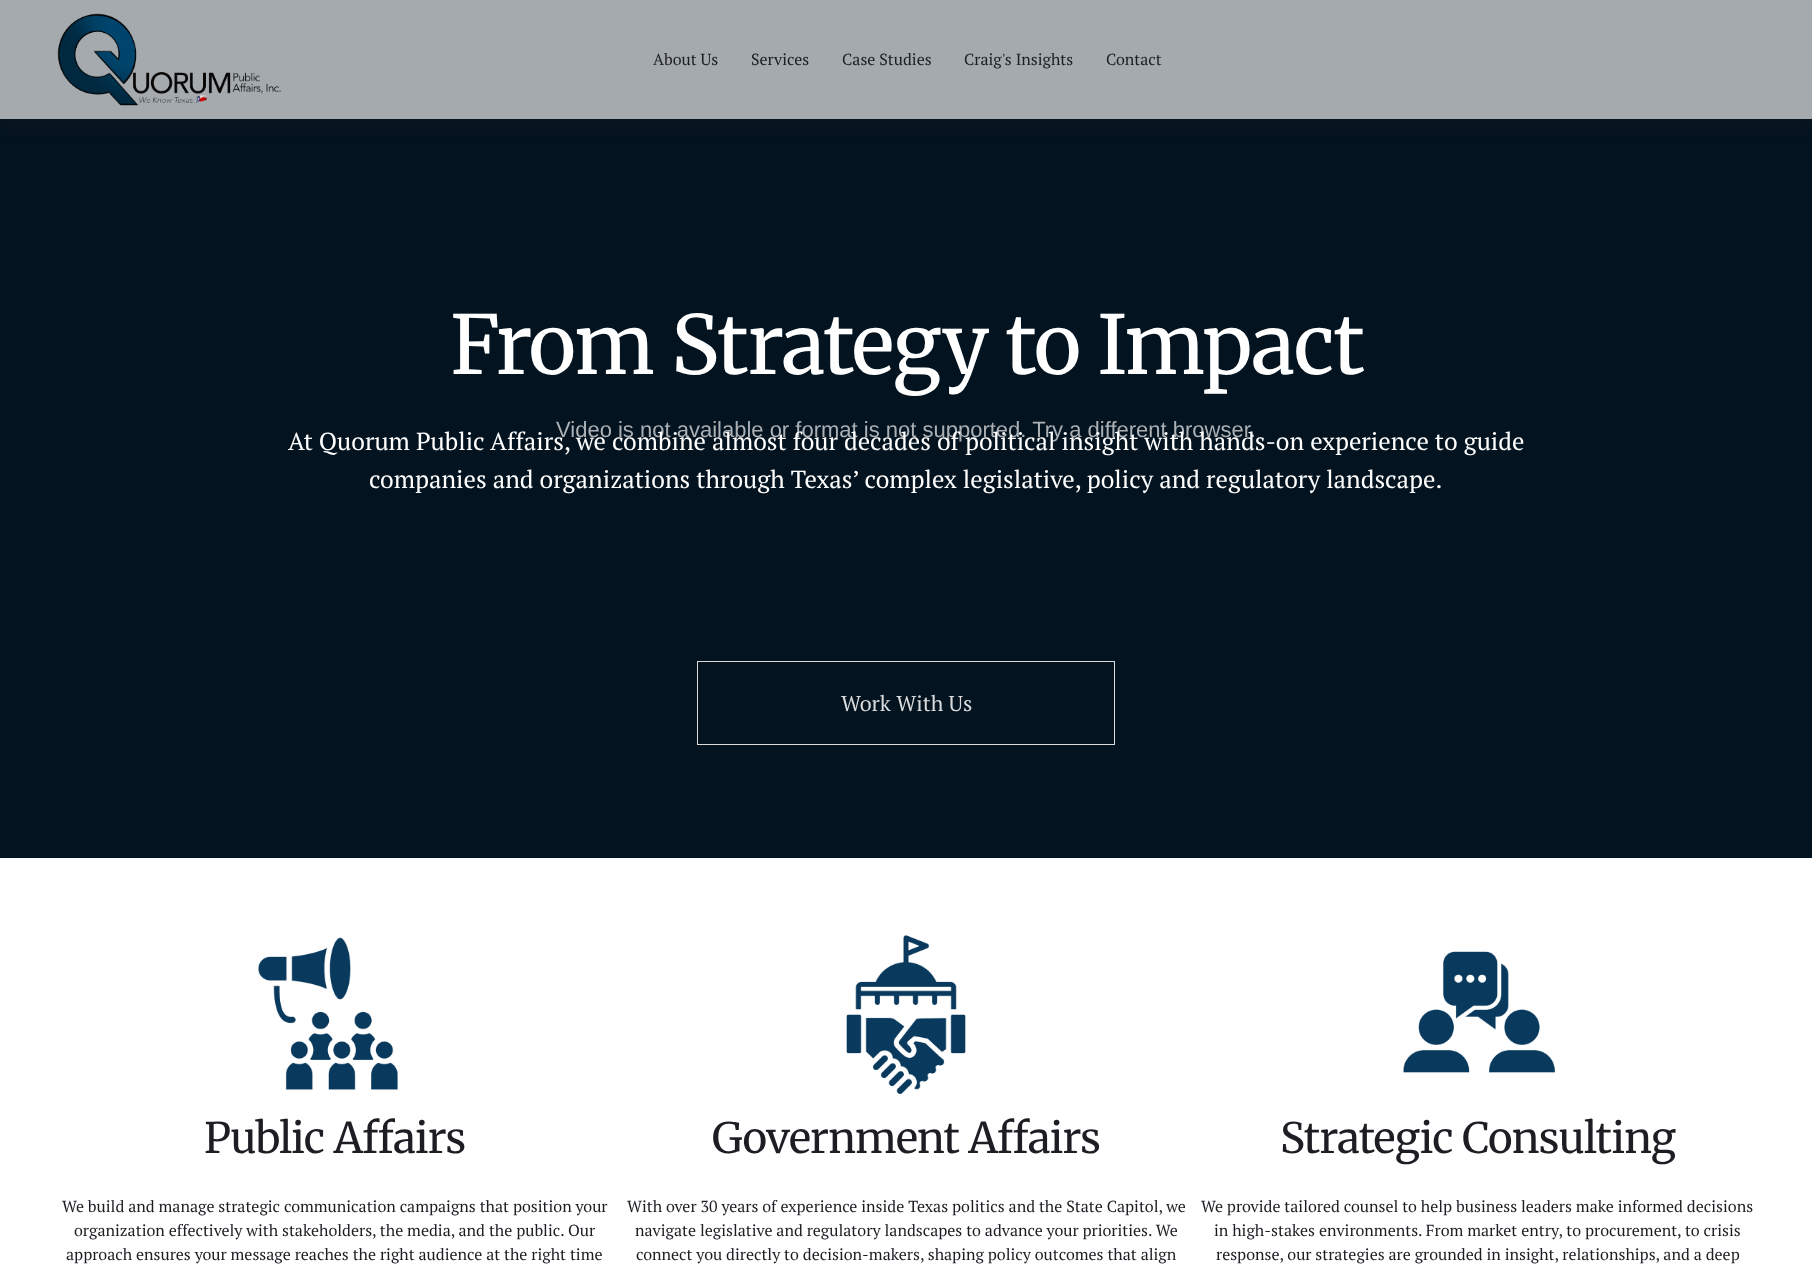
<svg xmlns="http://www.w3.org/2000/svg" xmlns:xlink="http://www.w3.org/1999/xlink" width="1812" height="1268" viewBox="0 0 1812 1268">
<style>
.cls-1{font:16px PT Serif;fill:#1d1e24}
.cls-2{font:81.25px Merriweather;letter-spacing:-1.6px;fill:#ffffff}
.cls-3{font:24.7px PT Serif;fill:#ffffff}
.cls-4{font:21.5px PT Serif;fill:#dadbdc}
.cls-5{font:22px Liberation Sans;fill:#acb1b5}
.cls-6{font:42px Merriweather;letter-spacing:-0.8px;fill:#1d1e24}
</style>
<rect width="100%" height="100%" fill="#ffffff"/>
<rect fill="#03131f" x="0" y="119" width="1812" height="739"/>
<rect fill="#071520" filter="blur(6px)" x="0" y="12" width="1812" height="119"/>
<rect fill="#a4aaae" x="0" y="0" width="1812" height="119"/>
<image xlink:href="image0.png" x="57" y="13" width="224" height="93"/>
<rect fill="none" stroke="#dadbdc" x="697.5" y="661.5" width="417" height="83"/>
<image xlink:href="image1.png" x="258" y="937" width="140" height="153"/>
<image xlink:href="image2.png" x="846" y="935" width="120" height="160"/>
<image xlink:href="image3.png" x="1403" y="951" width="152" height="122"/>
<text class="cls-1" x="653" y="65">About Us</text>
<text class="cls-1" x="751" y="65">Services</text>
<text class="cls-1" x="842" y="65">Case Studies</text>
<text class="cls-1" x="964" y="65">Craig's Insights</text>
<text class="cls-1" x="1106" y="65">Contact</text>
<text class="cls-2" x="450" y="374">From Strategy to Impact</text>
<text class="cls-3" x="369" y="488">companies and organizations through Texas’ complex legislative, policy and regulatory landscape.</text>
<text class="cls-4" x="841" y="711">Work With Us</text>
<text class="cls-5" x="556" y="437">Video is not available or format is not supported. Try a different browser.</text>
<text class="cls-3" x="288" y="450">At Quorum Public Affairs, we combine almost four decades of political insight with hands-on experience to guide</text>
<text class="cls-6" x="204" y="1153">Public Affairs</text>
<text class="cls-1" x="62" y="1212">We build and manage strategic communication campaigns that position your</text>
<text class="cls-1" x="74" y="1236">organization effectively with stakeholders, the media, and the public. Our</text>
<text class="cls-1" x="66" y="1260">approach ensures your message reaches the right audience at the right time</text>
<text class="cls-6" x="712" y="1153">Government Affairs</text>
<text class="cls-1" x="627" y="1212">With over 30 years of experience inside Texas politics and the State Capitol, we</text>
<text class="cls-1" x="635" y="1236">navigate legislative and regulatory landscapes to advance your priorities. We</text>
<text class="cls-1" x="636" y="1260">connect you directly to decision-makers, shaping policy outcomes that align</text>
<text class="cls-6" x="1280" y="1153">Strategic Consulting</text>
<text class="cls-1" x="1201" y="1212">We provide tailored counsel to help business leaders make informed decisions</text>
<text class="cls-1" x="1214" y="1236">in high-stakes environments. From market entry, to procurement, to crisis</text>
<text class="cls-1" x="1216" y="1260">response, our strategies are grounded in insight, relationships, and a deep</text>
</svg>
